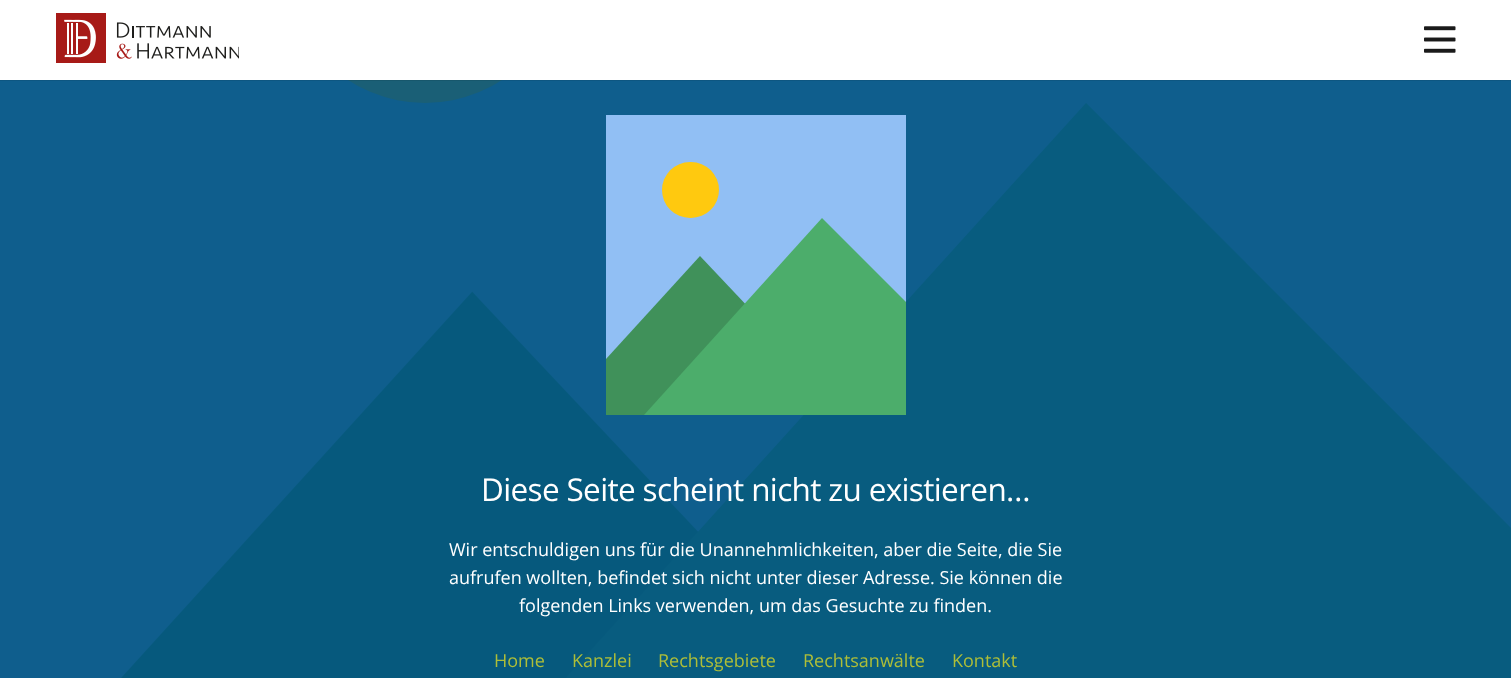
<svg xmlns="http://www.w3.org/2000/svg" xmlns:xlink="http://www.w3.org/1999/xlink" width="1511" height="678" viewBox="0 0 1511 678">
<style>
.cls-1{font:31.5px Open Sans;letter-spacing:-0.65px;fill:#ffffff}
.cls-2{font:18px Open Sans;fill:#ffffff}
.cls-3{font:18px Open Sans;fill:#aebe38}
</style>
<rect width="100%" height="100%" fill="#ffffff"/>
<image xlink:href="image2.png" x="0" y="80" width="1511" height="598"/>
<rect fill="#000000" fill-opacity="0.08" x="0" y="80" width="1511" height="1"/>
<image xlink:href="image0.png" x="56" y="13" width="183" height="50"/>
<image xlink:href="image1.png" x="1424" y="26" width="32" height="27"/>
<rect fill="#91bff4" x="606" y="115" width="300" height="244"/>
<rect fill="#ffc90f" x="662" y="162" width="57" height="56" rx="28"/>
<path fill="#40915a" d="M850 415H606V359L700 256Z"/>
<path fill="#4cad6b" d="M906 302V415H644L822 218Z"/>
<text class="cls-1" x="481" y="501">Diese Seite scheint nicht zu existieren…</text>
<text class="cls-2"><tspan x="449" y="556">Wir entschuldigen uns für die Unannehmlichkeiten, aber die Seite, die Sie</tspan><tspan x="449" y="584">aufrufen wollten, befindet sich nicht unter dieser Adresse. Sie können die</tspan></text>
<text class="cls-2" x="519" y="612">folgenden Links verwenden, um das Gesuchte zu finden.</text>
<text class="cls-3" x="494" y="667">Home</text>
<text class="cls-3" x="572" y="667">Kanzlei</text>
<text class="cls-3" x="658" y="667">Rechtsgebiete</text>
<text class="cls-3" x="803" y="667">Rechtsanwälte</text>
<text class="cls-3" x="952" y="667">Kontakt</text>
</svg>
